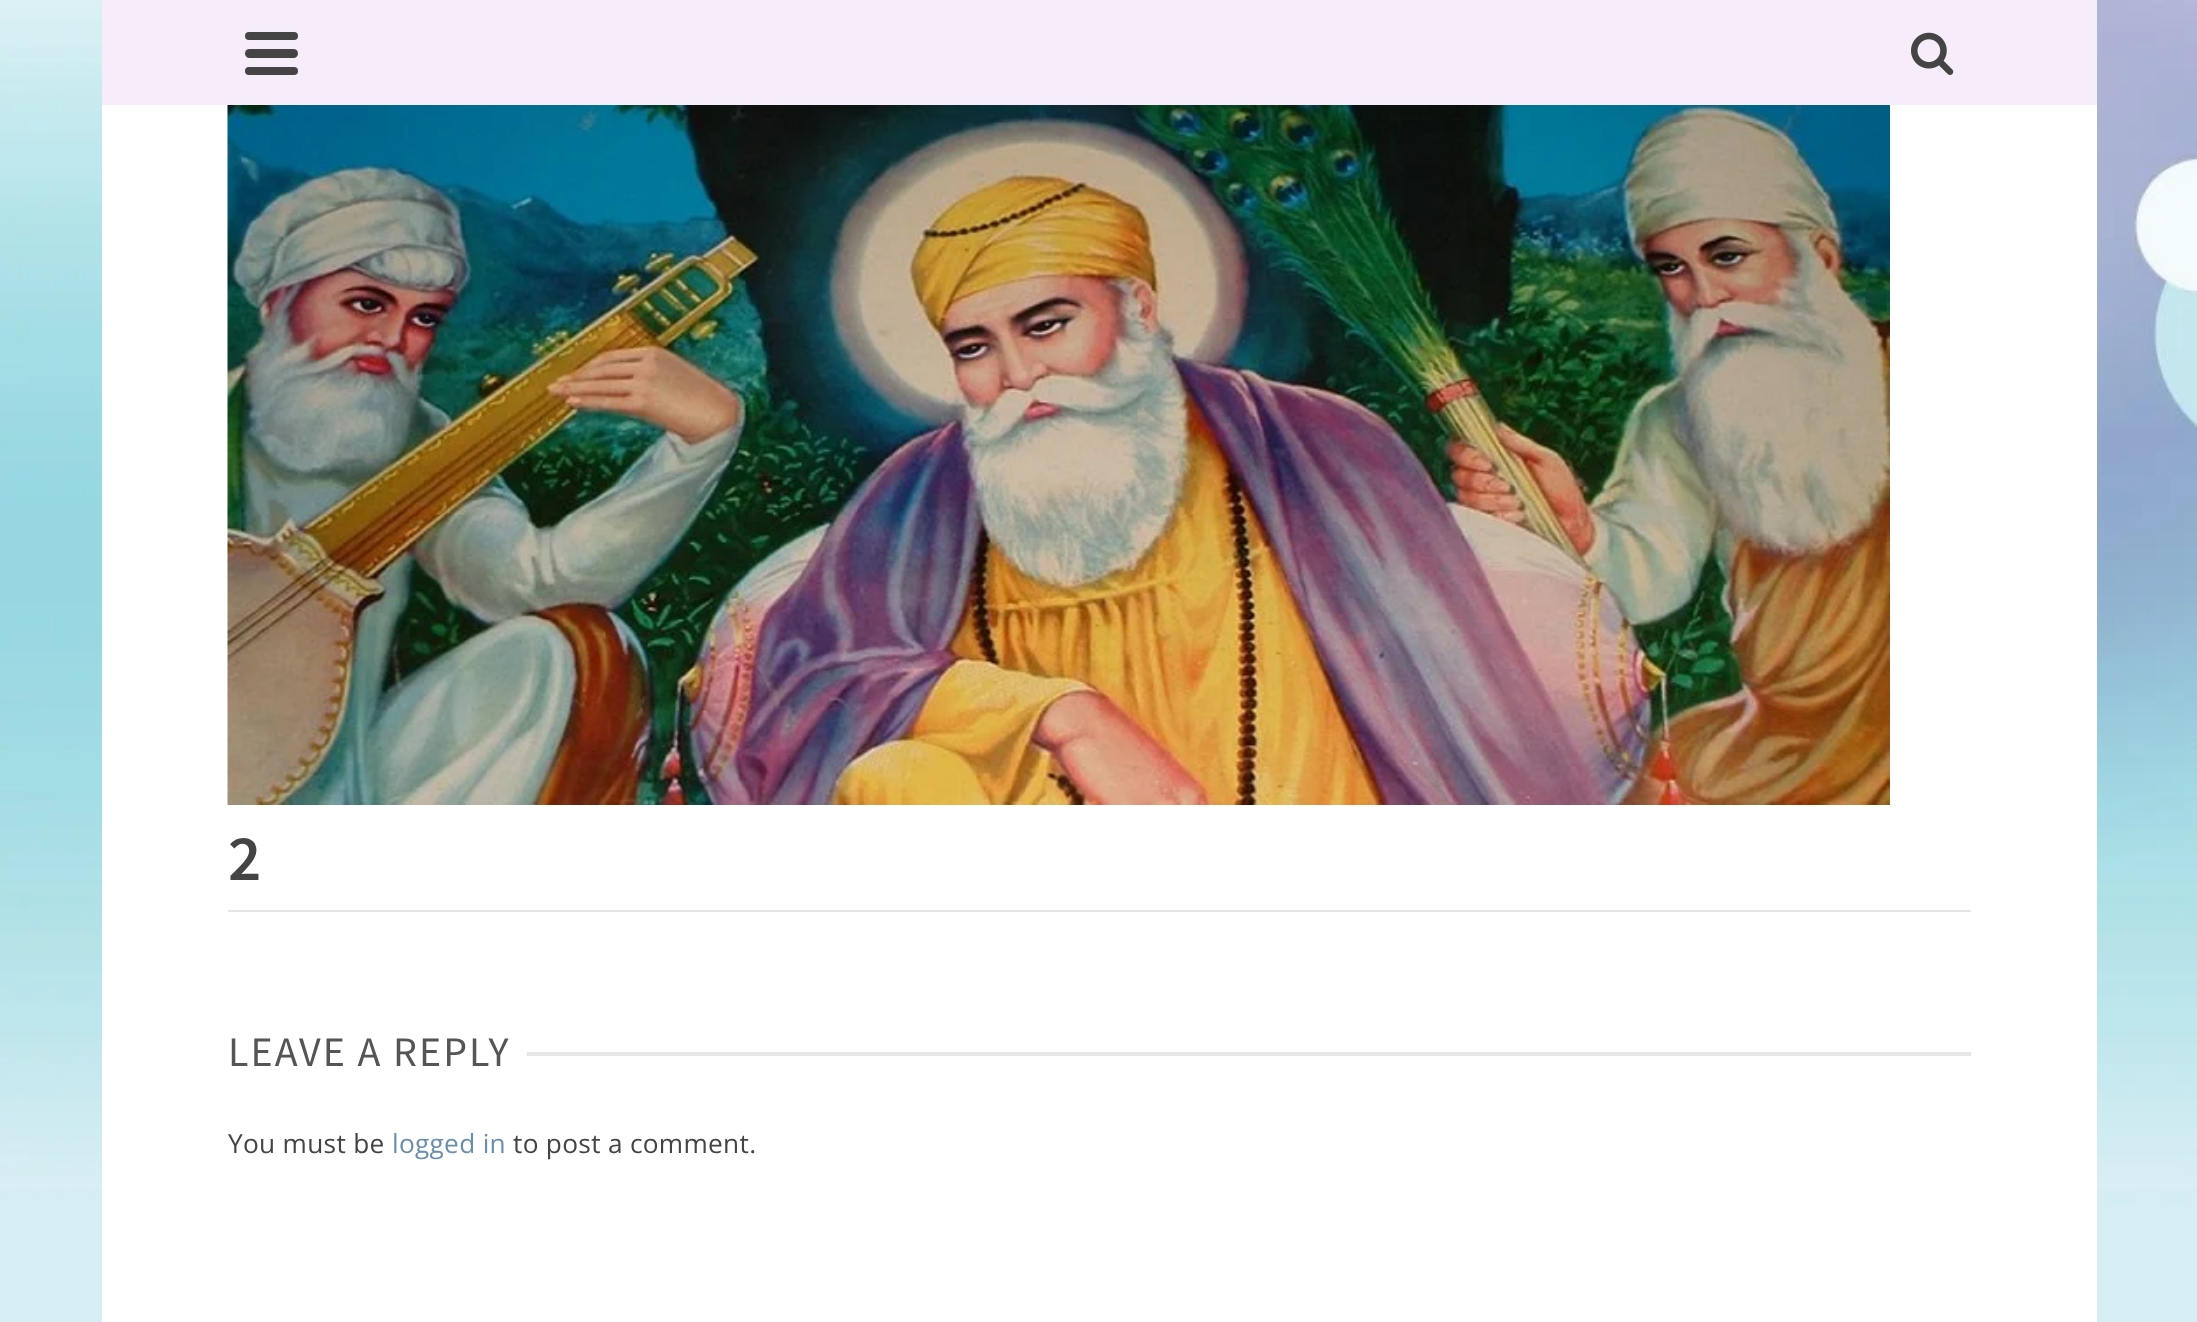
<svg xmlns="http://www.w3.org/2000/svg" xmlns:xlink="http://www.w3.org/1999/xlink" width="2197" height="1322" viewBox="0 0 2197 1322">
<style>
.cls-1{font:600 65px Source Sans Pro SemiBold;letter-spacing:2.1px;fill:#444444}
.cls-2{font:42px Source Sans Pro;letter-spacing:2.1px;fill:#555555}
.cls-3{font:26.25px Open Sans;letter-spacing:0.3px;fill:#444444}
.cls-4{font:26.25px Open Sans;letter-spacing:0.3px;fill:#6a8fab}
</style>
<rect width="100%" height="100%" fill="#ffffff"/>
<image xlink:href="image0.png" x="0" y="0" width="2197" height="1322"/>
<rect fill="#f7ecf9" x="102" y="0" width="1995" height="105"/>
<rect fill="#444444" x="245" y="32" width="53" height="8" rx="4"/>
<rect fill="#444444" x="245" y="49" width="53" height="9" rx="4.5"/>
<rect fill="#444444" x="245" y="67" width="53" height="8" rx="4"/>
<image xlink:href="image1.png" x="1911" y="32" width="43" height="43"/>
<rect fill="#ffffff" x="102" y="105" width="1995" height="1217"/>
<image xlink:href="image2.png" x="227" y="105" width="1663" height="700"/>
<rect fill="#e6e6e6" x="228" y="910" width="1743" height="2"/>
<rect fill="#e6e6e6" x="527" y="1052" width="1444" height="4"/>
<text class="cls-1" x="228" y="880">2</text>
<text class="cls-2" x="228" y="1066">LEAVE A REPLY</text>
<text class="cls-3" x="228" y="1153">You must be</text>
<text class="cls-4" x="392" y="1153">logged in</text>
<text class="cls-3" x="513" y="1153">to post a comment.</text>
</svg>
